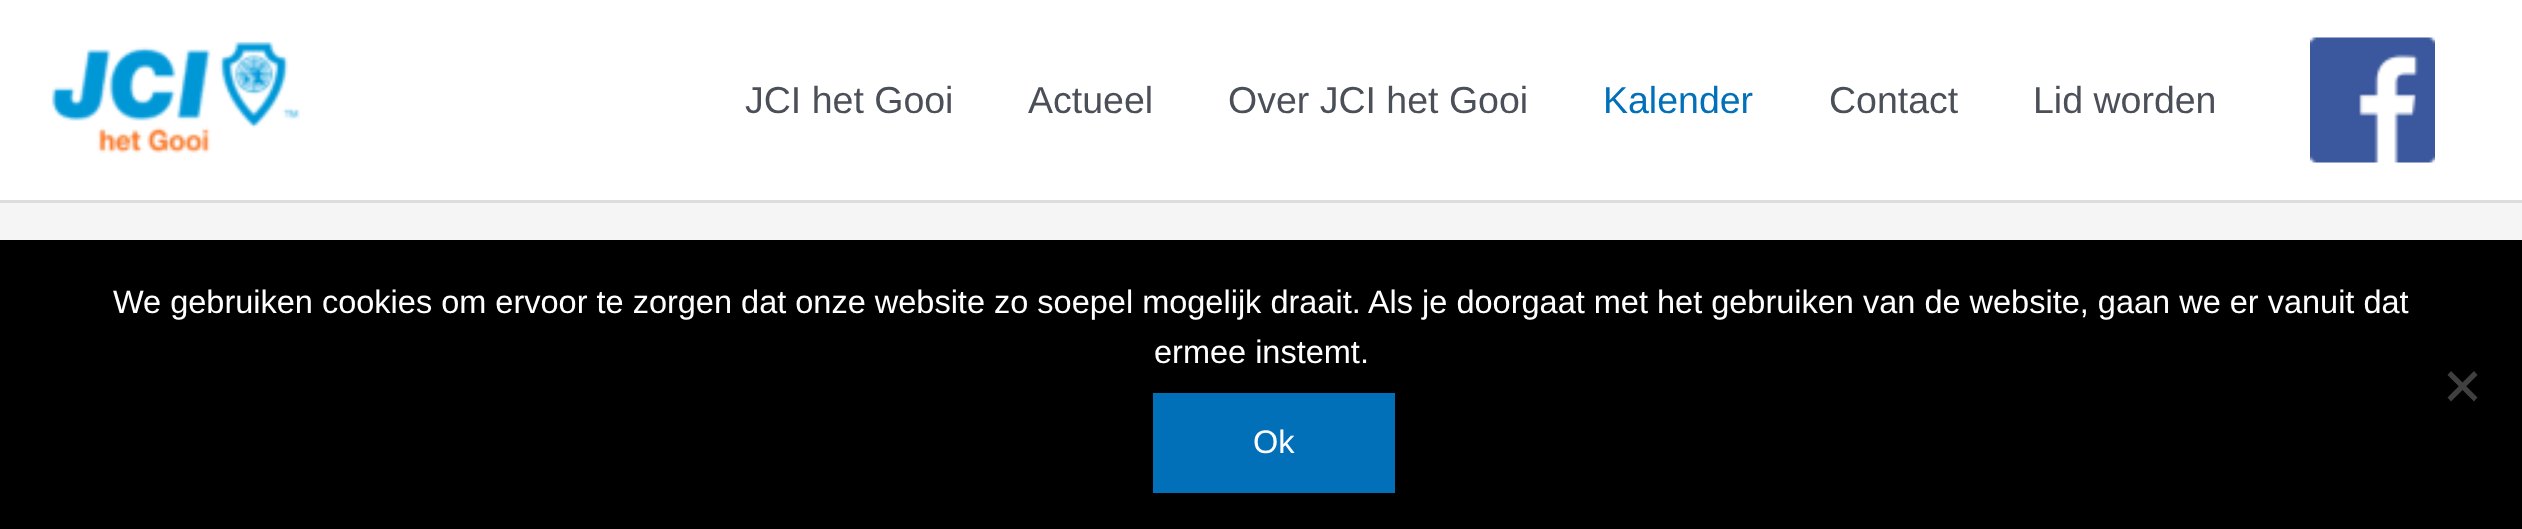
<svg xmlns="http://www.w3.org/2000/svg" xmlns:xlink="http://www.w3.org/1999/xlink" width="2522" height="529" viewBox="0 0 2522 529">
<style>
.cls-1{font:37.5px Liberation Sans;fill:#4b4f58}
.cls-2{font:37.5px Liberation Sans;fill:#0170b9}
.cls-3{font:32.5px Liberation Sans;fill:#ffffff}
</style>
<rect width="100%" height="100%" fill="#f5f5f5"/>
<rect fill="#ffffff" x="0" y="0" width="2522" height="200"/>
<rect fill="#dddddd" x="0" y="200" width="2522" height="3"/>
<image xlink:href="image0.png" x="51" y="41" width="249" height="113"/>
<image xlink:href="image1.png" x="2310" y="37" width="125" height="126"/>
<rect fill="#000000" x="0" y="240" width="2522" height="289"/>
<path fill="#404040" d="M2474 371L2477.5 375L2451 401.5L2447.5 397.5Z"/>
<path fill="#404040" d="M2447.5 375L2451 371L2477.5 397.5L2474 401.5Z"/>
<rect fill="#0170b9" x="1153" y="393" width="242" height="100"/>
<text class="cls-1" x="745" y="113">JCI het Gooi</text>
<text class="cls-1" x="1028" y="113">Actueel</text>
<text class="cls-1" x="1228" y="113">Over JCI het Gooi</text>
<text class="cls-2" x="1603" y="113">Kalender</text>
<text class="cls-1" x="1829" y="113">Contact</text>
<text class="cls-1" x="2033" y="113">Lid worden</text>
<text class="cls-3" x="113" y="313">We gebruiken cookies om ervoor te zorgen dat onze website zo soepel mogelijk draait. Als je doorgaat met het gebruiken van de website, gaan we er vanuit dat</text>
<text class="cls-3" x="1154" y="363">ermee instemt.</text>
<text class="cls-3" x="1253" y="453">Ok</text>
</svg>
